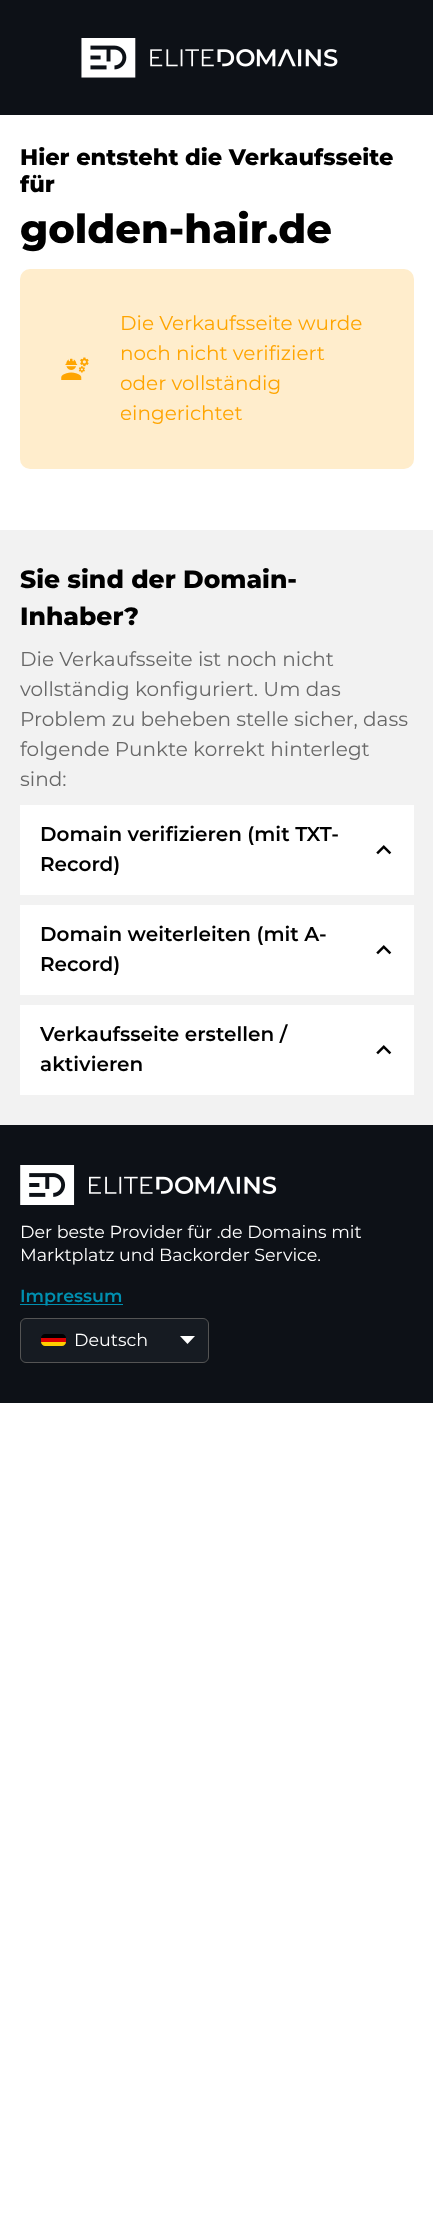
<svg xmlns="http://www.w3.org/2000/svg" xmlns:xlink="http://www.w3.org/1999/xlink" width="433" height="2225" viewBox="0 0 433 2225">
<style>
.cls-1{font:800 22.5px Montserrat;fill:#000000}
.cls-2{font:800 40px Montserrat;fill:#000000}
.cls-3{font:20px Montserrat;fill:#ffa500}
.cls-4{font:800 25px Montserrat;fill:#000000}
.cls-5{font:20px Montserrat;fill:#686868}
.cls-6{font:600 20px Montserrat;fill:#000000}
.cls-7{font:17.5px Montserrat;fill:#ffffff}
.cls-8{font:600 17.5px Montserrat;fill:#008faf}
</style>
<rect width="100%" height="100%" fill="#ffffff"/>
<rect fill="#0d1117" x="0" y="0" width="433" height="115"/>
<image xlink:href="image0.png" x="81" y="38" width="257" height="40"/>
<rect fill="#ffedcc" x="20" y="269" width="394" height="200" rx="10"/>
<image xlink:href="image1.png" x="61" y="357" width="28" height="23"/>
<rect fill="#f2f2f2" x="0" y="530" width="433" height="595"/>
<rect fill="#ffffff" x="20" y="805" width="394" height="90"/>
<image xlink:href="image2.png" x="376" y="845" width="16" height="10"/>
<rect fill="#ffffff" x="20" y="905" width="394" height="90"/>
<image xlink:href="image2.png" x="376" y="945" width="16" height="10"/>
<rect fill="#ffffff" x="20" y="1005" width="394" height="90"/>
<image xlink:href="image2.png" x="376" y="1045" width="16" height="10"/>
<rect fill="#0d1117" x="0" y="1125" width="433" height="278"/>
<image xlink:href="image3.png" x="20" y="1165" width="257" height="40"/>
<rect fill="#008faf" x="20" y="1304" width="103" height="1"/>
<rect fill="#161b22" stroke="#545454" x="20.5" y="1318.5" width="188" height="44" rx="5.5"/>
<path fill="#000000" d="M45 1334H62C64 1334 66 1336 66 1338H41C41 1336 43 1334 45 1334Z"/>
<rect fill="#dd0000" x="41" y="1338" width="25" height="4"/>
<path fill="#ffce00" d="M41 1342H66C66 1344 64 1346 62 1346H45C43 1346 41 1344 41 1342Z"/>
<path fill="#ffffff" d="M180 1336H195L187.5 1344Z"/>
<text class="cls-1"><tspan x="20" y="165">Hier entsteht die Verkaufsseite</tspan><tspan x="20" y="192">für</tspan></text>
<text class="cls-2" x="20" y="243">golden-hair.de</text>
<text class="cls-3"><tspan x="120" y="330">Die Verkaufsseite wurde</tspan><tspan x="120" y="360">noch nicht verifiziert</tspan><tspan x="120" y="390">oder vollständig</tspan><tspan x="120" y="420">eingerichtet</tspan></text>
<text class="cls-4"><tspan x="20" y="588">Sie sind der Domain-</tspan><tspan x="20" y="625">Inhaber?</tspan></text>
<text class="cls-5"><tspan x="20" y="666">Die Verkaufsseite ist noch nicht</tspan><tspan x="20" y="696">vollständig konfiguriert. Um das</tspan><tspan x="20" y="726">Problem zu beheben stelle sicher, dass</tspan><tspan x="20" y="756">folgende Punkte korrekt hinterlegt</tspan><tspan x="20" y="786">sind:</tspan></text>
<text class="cls-6"><tspan x="40" y="841">Domain verifizieren (mit TXT-</tspan><tspan x="40" y="871">Record)</tspan></text>
<text class="cls-6"><tspan x="40" y="941">Domain weiterleiten (mit A-</tspan><tspan x="40" y="971">Record)</tspan></text>
<text class="cls-6"><tspan x="40" y="1041">Verkaufsseite erstellen /</tspan><tspan x="40" y="1071">aktivieren</tspan></text>
<text class="cls-7"><tspan x="20" y="1238">Der beste Provider für .de Domains mit</tspan><tspan x="20" y="1261">Marktplatz und Backorder Service.</tspan></text>
<text class="cls-8" x="20" y="1302">Impressum</text>
<text class="cls-7" x="74" y="1346">Deutsch</text>
</svg>
